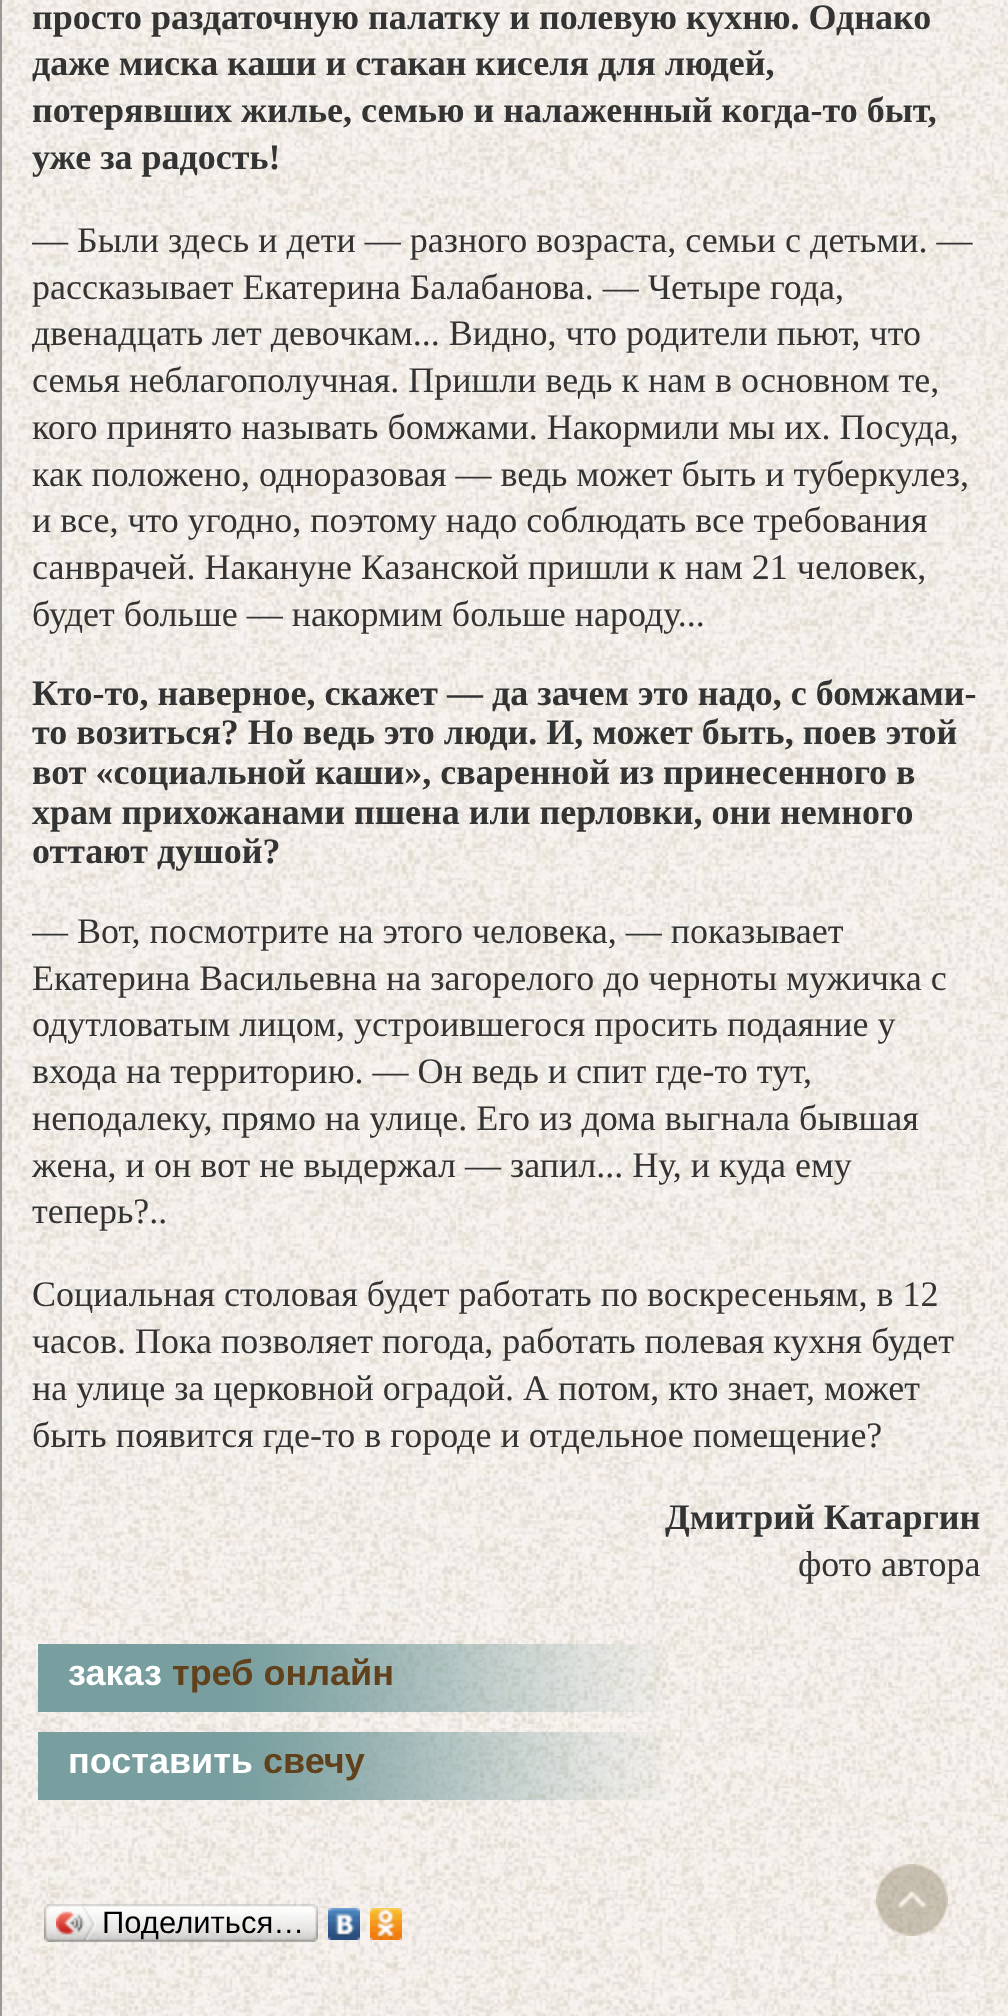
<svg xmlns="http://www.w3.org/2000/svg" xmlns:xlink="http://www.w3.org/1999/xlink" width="1008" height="2016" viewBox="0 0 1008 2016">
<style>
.cls-1{font:bold 36px Liberation Serif;fill:#333333}
.cls-2{font:36px Liberation Serif;fill:#333333}
.cls-3{font:bold 36px Liberation Sans;fill:#ffffff}
.cls-4{font:bold 36px Liberation Sans;fill:#60411b}
.cls-5{font:31px Liberation Sans;fill:#000000}
</style>
<defs>
<clipPath id="clip1"><rect x="32" y="0" width="948" height="1624"/></clipPath>
</defs>
<rect width="100%" height="100%" fill="#ffffff"/>
<image xlink:href="image0.png" x="2" y="0" width="1006" height="2016"/>
<rect fill="#999999" x="0" y="0" width="2" height="2016"/>
<image xlink:href="image1.png" x="38" y="1644" width="627" height="68"/>
<image xlink:href="image2.png" x="38" y="1732" width="627" height="68"/>
<image xlink:href="image3.png" x="50" y="1904" width="262" height="38"/>
<image xlink:href="image4.png" x="44" y="1904" width="6" height="38"/>
<image xlink:href="image5.png" x="56" y="1906" width="40" height="34"/>
<image xlink:href="image6.png" x="312" y="1904" width="6" height="38"/>
<image xlink:href="image7.png" x="328" y="1908" width="32" height="32"/>
<image xlink:href="image8.png" x="370" y="1908" width="32" height="32"/>
<image xlink:href="image9.png" x="876" y="1864" width="72" height="72"/>
<text class="cls-1"><tspan x="32" y="29">просто раздаточную палатку и полевую кухню. Однако</tspan><tspan x="32" y="75">даже миска каши и стакан киселя для людей,</tspan><tspan x="32" y="122">потерявших жилье, семью и налаженный когда-то быт,</tspan><tspan x="32" y="169">уже за радость!</tspan></text>
<g clip-path="url(#clip1)">
<text class="cls-2" x="32" y="252">— Были здесь и дети — разного возраста, семьи с детьми. —</text>
</g>
<text class="cls-2" x="32" y="299">рассказывает Екатерина Балабанова. — Четыре года,</text>
<g clip-path="url(#clip1)">
<text class="cls-2" x="32" y="345">двенадцать лет девочкам... Видно, что родители пьют, что</text>
</g>
<text class="cls-2"><tspan x="32" y="392">семья неблагополучная. Пришли ведь к нам в основном те,</tspan><tspan x="32" y="439">кого принято называть бомжами. Накормили мы их. Посуда,</tspan><tspan x="32" y="486">как положено, одноразовая — ведь может быть и туберкулез,</tspan><tspan x="32" y="532">и все, что угодно, поэтому надо соблюдать все требования</tspan><tspan x="32" y="579">санврачей. Накануне Казанской пришли к нам 21 человек,</tspan><tspan x="32" y="626">будет больше — накормим больше народу...</tspan></text>
<text class="cls-1"><tspan x="32" y="705">Кто-то, наверное, скажет — да зачем это надо, с бомжами-</tspan><tspan x="32" y="744">то возиться? Но ведь это люди. И, может быть, поев этой</tspan><tspan x="32" y="784">вот «социальной каши», сваренной из принесенного в</tspan><tspan x="32" y="824">храм прихожанами пшена или перловки, они немного</tspan><tspan x="32" y="863">оттают душой?</tspan></text>
<g clip-path="url(#clip1)">
<text class="cls-2" x="32" y="943">— Вот, посмотрите на этого человека, — показывает</text>
</g>
<text class="cls-2"><tspan x="32" y="990">Екатерина Васильевна на загорелого до черноты мужичка с</tspan><tspan x="32" y="1036">одутловатым лицом, устроившегося просить подаяние у</tspan><tspan x="32" y="1083">входа на территорию. — Он ведь и спит где-то тут,</tspan><tspan x="32" y="1130">неподалеку, прямо на улице. Его из дома выгнала бывшая</tspan><tspan x="32" y="1177">жена, и он вот не выдержал — запил... Ну, и куда ему</tspan><tspan x="32" y="1223">теперь?..</tspan></text>
<text class="cls-2"><tspan x="32" y="1306">Социальная столовая будет работать по воскресеньям, в 12</tspan><tspan x="32" y="1353">часов. Пока позволяет погода, работать полевая кухня будет</tspan><tspan x="32" y="1400">на улице за церковной оградой. А потом, кто знает, может</tspan><tspan x="32" y="1447">быть появится где-то в городе и отдельное помещение?</tspan></text>
<text class="cls-1" x="665" y="1529">Дмитрий Катаргин</text>
<text class="cls-2" x="798" y="1576">фото автора</text>
<text class="cls-3" x="68" y="1685">заказ</text>
<text class="cls-4" x="172" y="1685">треб онлайн</text>
<text class="cls-3" x="68" y="1773">поставить</text>
<text class="cls-4" x="263" y="1773">свечу</text>
<text class="cls-5" x="102" y="1933">Поделиться…</text>
</svg>
